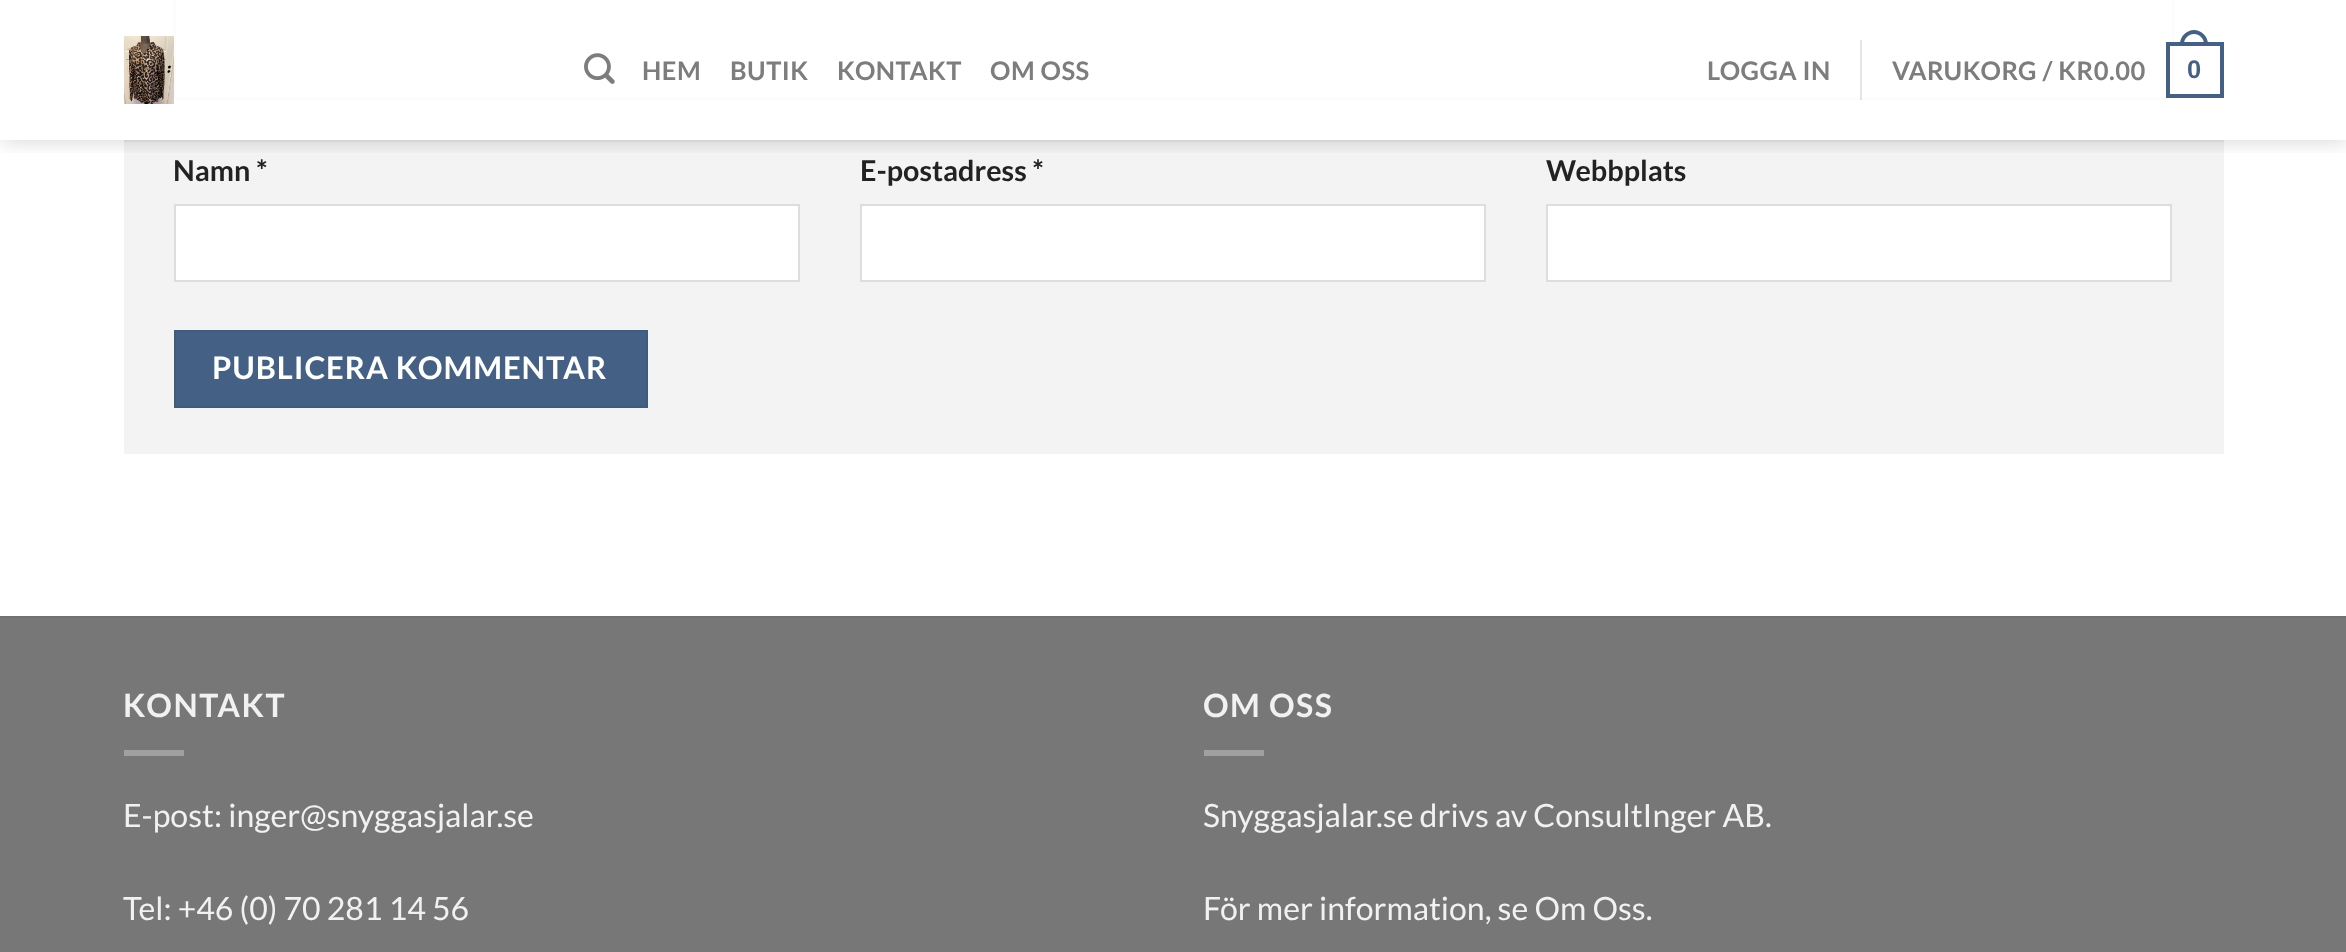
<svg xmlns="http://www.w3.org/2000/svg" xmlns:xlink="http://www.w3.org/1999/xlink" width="2346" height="952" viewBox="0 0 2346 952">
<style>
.cls-1{font:bold 25.5px Lato;letter-spacing:0.5px;fill:#7d7d7d}
.cls-2{font:bold 25.5px Liberation Sans;letter-spacing:0.5px;fill:#446084}
.cls-3{font:bold 28.75px Lato;fill:#222222}
.cls-4{font:bold 31px Lato;letter-spacing:0.9px;fill:#ffffff}
.cls-5{font:bold 32px Lato;letter-spacing:1.5px;fill:#f1f1f1}
.cls-6{font:32px Lato;fill:#f1f1f1}
</style>
<defs>
<clipPath id="clip1"><rect x="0" y="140" width="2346" height="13"/></clipPath>
</defs>
<rect width="100%" height="100%" fill="#ffffff"/>
<rect fill="#f3f3f3" x="124" y="142" width="2100" height="312"/>
<rect fill="none" stroke="#fcfcfc" stroke-width="2" x="175" y="-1" width="1998" height="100"/>
<g clip-path="url(#clip1)">
<rect fill="#000000" fill-opacity="0.15" filter="blur(10px)" x="2" y="2" width="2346" height="140"/>
</g>
<image xlink:href="image0.png" x="124" y="36" width="50" height="68"/>
<image xlink:href="image1.png" x="584" y="53" width="31" height="31"/>
<rect fill="#000000" fill-opacity="0.1" x="1860" y="40" width="2" height="60"/>
<rect fill="none" stroke="#446084" stroke-width="4" x="2168" y="44" width="54" height="52"/>
<path fill="#446084" fill-rule="evenodd" d="M2194 30C2201.5 30 2208 36.5 2208 44V46H2180V44C2180 36.5 2186.5 30 2194 30ZM2194 34C2199.5 34 2204 38.5 2204 44V46H2184V44C2184 38.5 2188.5 34 2194 34Z"/>
<rect fill="#d5d5d5" x="124" y="140" width="2100" height="2"/>
<rect fill="#ffffff" stroke="#dddddd" stroke-width="2" x="175" y="205" width="624" height="76"/>
<rect fill="#ffffff" stroke="#dddddd" stroke-width="2" x="861" y="205" width="624" height="76"/>
<rect fill="#ffffff" stroke="#dddddd" stroke-width="2" x="1547" y="205" width="624" height="76"/>
<rect fill="#446084" stroke="#415b7d" stroke-width="2" x="175" y="331" width="472" height="76"/>
<rect fill="#777777" x="0" y="618" width="2346" height="334"/>
<rect fill="#717171" x="0" y="616" width="2346" height="2"/>
<rect fill="#a0a0a0" x="124" y="750" width="60" height="6"/>
<rect fill="#a0a0a0" x="1204" y="750" width="60" height="6"/>
<text class="cls-1" x="642" y="80">HEM</text>
<text class="cls-1" x="730" y="80">BUTIK</text>
<text class="cls-1" x="837" y="80">KONTAKT</text>
<text class="cls-1" x="990" y="80">OM OSS</text>
<text class="cls-1" x="1707" y="80">LOGGA IN</text>
<text class="cls-1" x="1892" y="80">VARUKORG / KR0.00</text>
<text class="cls-2" x="2187" y="78">0</text>
<text class="cls-3" x="173" y="181">Namn *</text>
<text class="cls-3" x="860" y="181">E-postadress *</text>
<text class="cls-3" x="1546" y="181">Webbplats</text>
<text class="cls-4" x="212" y="379">PUBLICERA KOMMENTAR</text>
<text class="cls-5" x="123" y="717">KONTAKT</text>
<text class="cls-6" x="123" y="827">E-post: inger@snyggasjalar.se</text>
<text class="cls-6" x="123" y="920">Tel: +46 (0) 70 281 14 56</text>
<text class="cls-5" x="1203" y="717">OM OSS</text>
<text class="cls-6" x="1203" y="827">Snyggasjalar.se drivs av ConsultInger AB.</text>
<text class="cls-6" x="1203" y="920">För mer information, se Om Oss.</text>
</svg>
